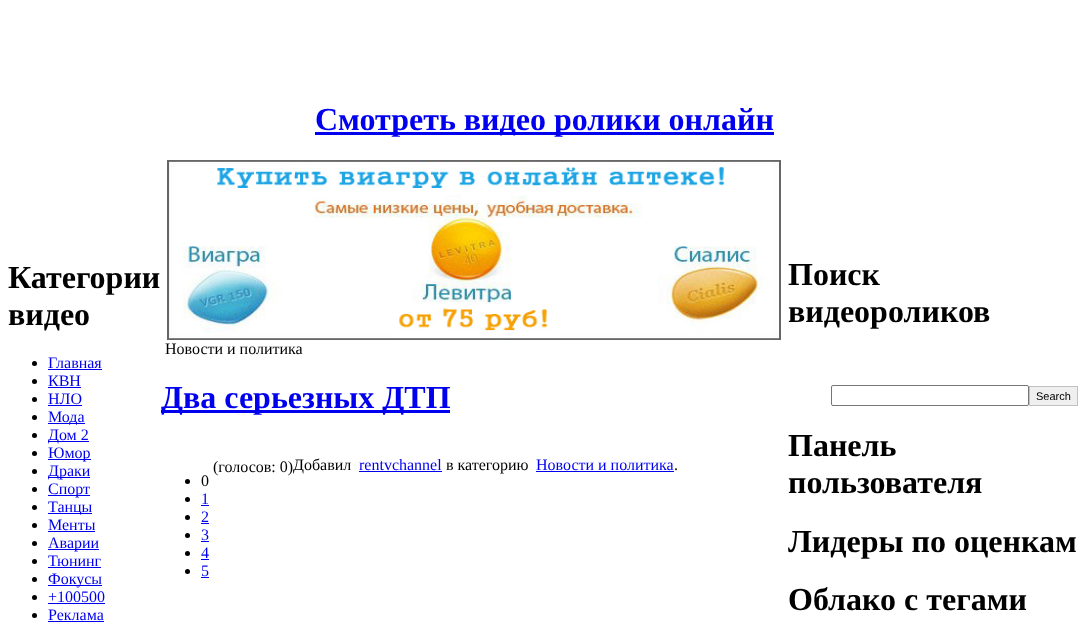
<svg xmlns="http://www.w3.org/2000/svg" xmlns:xlink="http://www.w3.org/1999/xlink" width="1089" height="622" viewBox="0 0 1089 622">
<style>
.cls-1{font:bold 32px Liberation Serif;fill:#0000ee}
.cls-2{font:bold 32px Liberation Serif;fill:#000000}
.cls-3{font:16px Liberation Serif;fill:#0000ee}
.cls-4{font:16px Liberation Serif;fill:#000000}
.cls-5{font:11px Liberation Sans;fill:#000000}
</style>
<rect width="100%" height="100%" fill="#ffffff"/>
<rect fill="#0000ee" x="315" y="132" width="459" height="3"/>
<circle fill="#000000" cx="34.5" cy="363.5" r="2.5"/>
<rect fill="#0000ee" x="48" y="369" width="54" height="1"/>
<circle fill="#000000" cx="34.5" cy="381.5" r="2.5"/>
<rect fill="#0000ee" x="48" y="387" width="33" height="1"/>
<circle fill="#000000" cx="34.5" cy="399.5" r="2.5"/>
<rect fill="#0000ee" x="48" y="405" width="34" height="1"/>
<circle fill="#000000" cx="34.5" cy="417.5" r="2.5"/>
<rect fill="#0000ee" x="48" y="423" width="37" height="1"/>
<circle fill="#000000" cx="34.5" cy="435.5" r="2.5"/>
<rect fill="#0000ee" x="48" y="441" width="41" height="1"/>
<circle fill="#000000" cx="34.5" cy="453.5" r="2.5"/>
<rect fill="#0000ee" x="48" y="459" width="43" height="1"/>
<circle fill="#000000" cx="34.5" cy="471.5" r="2.5"/>
<rect fill="#0000ee" x="48" y="477" width="42" height="1"/>
<circle fill="#000000" cx="34.5" cy="489.5" r="2.5"/>
<rect fill="#0000ee" x="48" y="495" width="42" height="1"/>
<circle fill="#000000" cx="34.5" cy="507.5" r="2.5"/>
<rect fill="#0000ee" x="48" y="513" width="44" height="1"/>
<circle fill="#000000" cx="34.5" cy="525.5" r="2.5"/>
<rect fill="#0000ee" x="48" y="531" width="47" height="1"/>
<circle fill="#000000" cx="34.5" cy="543.5" r="2.5"/>
<rect fill="#0000ee" x="48" y="549" width="51" height="1"/>
<circle fill="#000000" cx="34.5" cy="561.5" r="2.5"/>
<rect fill="#0000ee" x="48" y="567" width="53" height="1"/>
<circle fill="#000000" cx="34.5" cy="579.5" r="2.5"/>
<rect fill="#0000ee" x="48" y="585" width="54" height="1"/>
<circle fill="#000000" cx="34.5" cy="597.5" r="2.5"/>
<rect fill="#0000ee" x="48" y="603" width="57" height="1"/>
<circle fill="#000000" cx="34.5" cy="615.5" r="2.5"/>
<rect fill="#0000ee" x="48" y="621" width="56" height="1"/>
<image xlink:href="image0.png" x="167" y="160" width="614" height="180"/>
<rect fill="#0000ee" x="161" y="410" width="289" height="3"/>
<circle fill="#000000" cx="187.5" cy="481.5" r="2.5"/>
<circle fill="#000000" cx="187.5" cy="499.5" r="2.5"/>
<rect fill="#0000ee" x="201" y="505" width="8" height="1"/>
<circle fill="#000000" cx="187.5" cy="517.5" r="2.5"/>
<rect fill="#0000ee" x="201" y="523" width="8" height="1"/>
<circle fill="#000000" cx="187.5" cy="535.5" r="2.5"/>
<rect fill="#0000ee" x="201" y="541" width="8" height="1"/>
<circle fill="#000000" cx="187.5" cy="553.5" r="2.5"/>
<rect fill="#0000ee" x="201" y="559" width="8" height="1"/>
<circle fill="#000000" cx="187.5" cy="571.5" r="2.5"/>
<rect fill="#0000ee" x="201" y="577" width="8" height="1"/>
<rect fill="#0000ee" x="359" y="471" width="83" height="1"/>
<rect fill="#0000ee" x="536" y="471" width="138" height="1"/>
<rect fill="none" stroke="#767676" x="831.5" y="385.5" width="197" height="20" rx="1.5"/>
<rect fill="#efefef" stroke="#c0c0c0" x="1029.5" y="386.5" width="48" height="19"/>
<text class="cls-1" x="315" y="130">Смотреть видео ролики онлайн</text>
<text class="cls-2"><tspan x="8" y="288">Категории</tspan><tspan x="8" y="325">видео</tspan></text>
<text class="cls-3"><tspan x="48" y="368">Главная</tspan><tspan x="48" y="386">КВН</tspan><tspan x="48" y="404">НЛО</tspan><tspan x="48" y="422">Мода</tspan><tspan x="48" y="440">Дом 2</tspan><tspan x="48" y="458">Юмор</tspan><tspan x="48" y="476">Драки</tspan><tspan x="48" y="494">Спорт</tspan><tspan x="48" y="512">Танцы</tspan><tspan x="48" y="530">Менты</tspan><tspan x="48" y="548">Аварии</tspan><tspan x="48" y="566">Тюнинг</tspan><tspan x="48" y="584">Фокусы</tspan><tspan x="48" y="602">+100500</tspan><tspan x="48" y="620">Реклама</tspan></text>
<text class="cls-4" x="165" y="354">Новости и политика</text>
<text class="cls-1" x="161" y="408">Два серьезных ДТП</text>
<text class="cls-4" x="213" y="472">(голосов: 0)</text>
<text class="cls-4" x="201" y="486">0</text>
<text class="cls-3"><tspan x="201" y="504">1</tspan><tspan x="201" y="522">2</tspan><tspan x="201" y="540">3</tspan><tspan x="201" y="558">4</tspan><tspan x="201" y="576">5</tspan></text>
<text class="cls-4" x="293" y="470">Добавил</text>
<text class="cls-3" x="359" y="470">rentvchannel</text>
<text class="cls-4" x="446" y="470">в категорию</text>
<text class="cls-3" x="536" y="470">Новости и политика</text>
<text class="cls-4" x="674" y="470">.</text>
<text class="cls-2"><tspan x="788" y="285">Поиск</tspan><tspan x="788" y="322">видеороликов</tspan></text>
<text class="cls-5" x="1036" y="400">Search</text>
<text class="cls-2"><tspan x="788" y="456">Панель</tspan><tspan x="788" y="493">пользователя</tspan><tspan x="788" y="552">Лидеры по оценкам</tspan><tspan x="788" y="610">Облако с тегами</tspan></text>
</svg>
